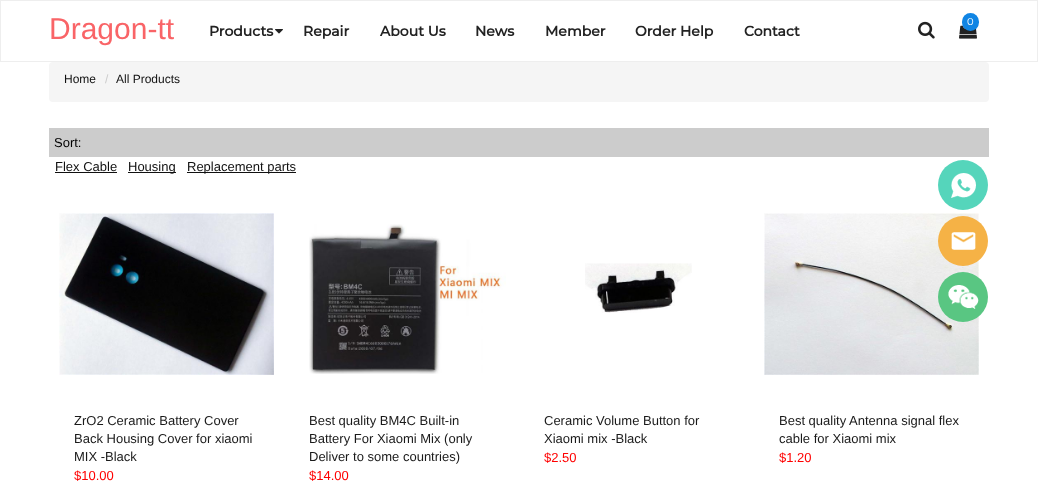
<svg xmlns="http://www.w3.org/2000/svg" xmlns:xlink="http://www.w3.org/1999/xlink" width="1038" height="484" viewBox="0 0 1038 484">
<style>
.cls-1{font:30px Liberation Sans;fill:#f96467}
.cls-2{font:bold 14px Montserrat;fill:#222222}
.cls-3{font:10px Montserrat;fill:#ffffff}
.cls-4{font:12px Liberation Sans;fill:#111111}
.cls-5{font:12px Liberation Sans;fill:#cccccc}
.cls-6{font:13px Liberation Sans;fill:#000000}
.cls-7{font:13px Liberation Sans;fill:#111111}
.cls-8{font:13px Liberation Sans;fill:#1a1a1a}
.cls-9{font:13px Liberation Sans;fill:#ff0000}
</style>
<rect width="100%" height="100%" fill="#ffffff"/>
<rect fill="none" stroke="#eeeeee" x="0.5" y="0.5" width="1037" height="61"/>
<image xlink:href="image0.png" x="275" y="29" width="8" height="5"/>
<image xlink:href="image1.png" x="918" y="21" width="17" height="18"/>
<image xlink:href="image2.png" x="959" y="25" width="18" height="14"/>
<rect fill="#1085e4" x="962" y="13" width="17" height="18" rx="8.5"/>
<rect fill="#f5f5f5" x="49" y="62" width="940" height="40" rx="4"/>
<rect fill="#cccccc" x="49" y="128" width="940" height="29"/>
<rect fill="#111111" x="55" y="172" width="62" height="1"/>
<rect fill="#111111" x="128" y="172" width="48" height="1"/>
<rect fill="#111111" x="187" y="172" width="109" height="1"/>
<image xlink:href="image3.png" x="59" y="213" width="215" height="162"/>
<image xlink:href="image4.png" x="309" y="224" width="197" height="150"/>
<image xlink:href="image5.png" x="585" y="263" width="107" height="50"/>
<image xlink:href="image6.png" x="764" y="213" width="215" height="162"/>
<circle fill="#55d5bb" cx="963" cy="185" r="25"/>
<image xlink:href="image7.png" x="951" y="173" width="25" height="25"/>
<circle fill="#f5b246" cx="963" cy="241" r="25"/>
<image xlink:href="image8.png" x="951" y="232" width="25" height="18"/>
<circle fill="#59c682" cx="963" cy="297" r="25"/>
<image xlink:href="image9.png" x="948" y="285" width="31" height="24"/>
<text class="cls-1" x="49" y="39">Dragon-tt</text>
<text class="cls-2" x="209" y="36">Products</text>
<text class="cls-2" x="303" y="36">Repair</text>
<text class="cls-2" x="380" y="36">About Us</text>
<text class="cls-2" x="475" y="36">News</text>
<text class="cls-2" x="545" y="36">Member</text>
<text class="cls-2" x="635" y="36">Order Help</text>
<text class="cls-2" x="744" y="36">Contact</text>
<text class="cls-3" x="967" y="25">0</text>
<text class="cls-4" x="64" y="83">Home</text>
<text class="cls-5" x="105" y="83">/</text>
<text class="cls-4" x="116" y="83">All Products</text>
<text class="cls-6" x="54" y="147">Sort:</text>
<text class="cls-7" x="55" y="171">Flex Cable</text>
<text class="cls-7" x="128" y="171">Housing</text>
<text class="cls-7" x="187" y="171">Replacement parts</text>
<text class="cls-8"><tspan x="74" y="425">ZrO2 Ceramic Battery Cover</tspan><tspan x="74" y="443">Back Housing Cover for xiaomi</tspan><tspan x="74" y="461">MIX -Black</tspan></text>
<text class="cls-9" x="74" y="480">$10.00</text>
<text class="cls-8"><tspan x="309" y="425">Best quality BM4C Built-in</tspan><tspan x="309" y="443">Battery For Xiaomi Mix (only</tspan><tspan x="309" y="461">Deliver to some countries)</tspan></text>
<text class="cls-9" x="309" y="480">$14.00</text>
<text class="cls-8"><tspan x="544" y="425">Ceramic Volume Button for</tspan><tspan x="544" y="443">Xiaomi mix -Black</tspan></text>
<text class="cls-9" x="544" y="462">$2.50</text>
<text class="cls-8"><tspan x="779" y="425">Best quality Antenna signal flex</tspan><tspan x="779" y="443">cable for Xiaomi mix</tspan></text>
<text class="cls-9" x="779" y="462">$1.20</text>
</svg>
